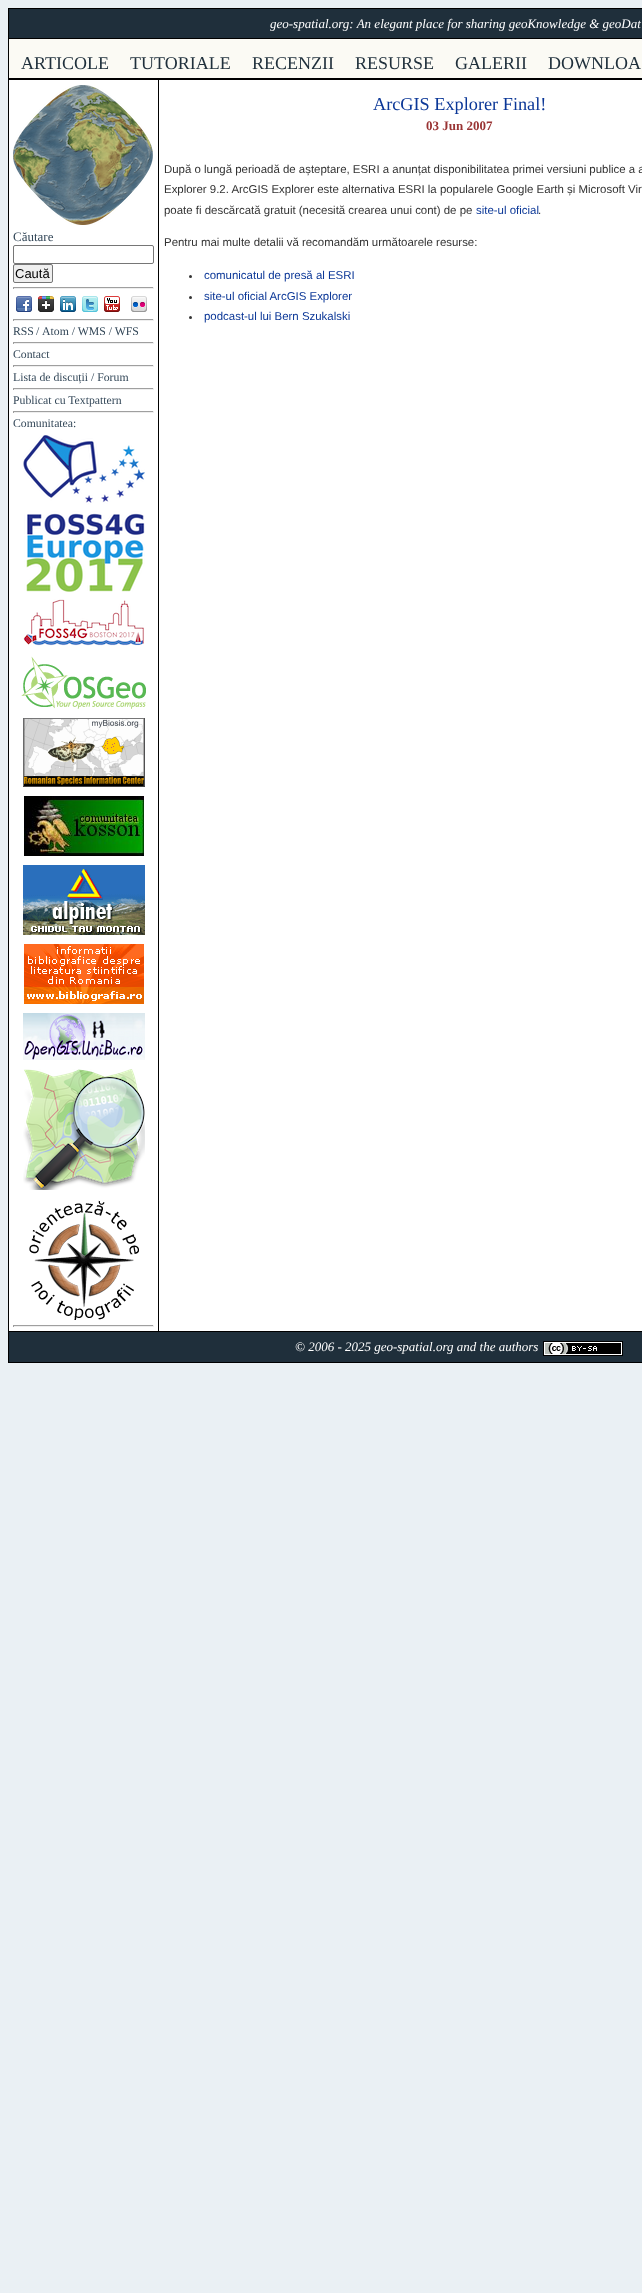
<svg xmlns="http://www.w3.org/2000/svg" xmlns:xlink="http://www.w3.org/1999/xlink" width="642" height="2293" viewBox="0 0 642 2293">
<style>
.cls-1{font:italic 13px Liberation Serif;fill:#ffffff}
.cls-2{font:18px Liberation Serif;fill:#1f2f3b}
.cls-3{font:13px Liberation Serif;fill:#334758}
.cls-4{font:13px Liberation Sans;fill:#000000}
.cls-5{font:11.75px Liberation Serif;fill:#334758}
.cls-6{font:18.25px Liberation Serif;fill:#0b3797}
.cls-7{font:bold 13px Liberation Serif;fill:#993333}
.cls-8{font:11.45px Liberation Sans;fill:#333333}
.cls-9{font:11.45px Liberation Sans;fill:#0b3797}
</style>
<rect width="100%" height="100%" fill="#eaf0f4"/>
<rect fill="#1f2f3b" stroke="#000000" x="8.5" y="8.5" width="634" height="30"/>
<rect fill="#fbfaf4" x="9" y="39" width="633" height="39"/>
<rect fill="#000000" x="8" y="78" width="634" height="2"/>
<rect fill="#000000" x="8" y="39" width="1" height="40"/>
<rect fill="#ffffff" x="9" y="80" width="633" height="1251"/>
<rect fill="#000000" x="158" y="80" width="1" height="1251"/>
<rect fill="#000000" x="8" y="80" width="1" height="1251"/>
<image xlink:href="image0.png" x="13" y="85" width="140" height="140"/>
<rect fill="none" stroke="#767676" x="13.5" y="245.5" width="140" height="18" rx="1.5"/>
<rect fill="#efefef" stroke="#767676" x="13.5" y="264.5" width="39" height="18" rx="1.5"/>
<rect fill="#9f9f9f" x="13" y="287" width="141" height="1"/>
<rect fill="#eeeeee" x="153" y="287" width="1" height="2"/>
<rect fill="#eeeeee" x="13" y="288" width="141" height="1"/>
<rect fill="#9f9f9f" x="13" y="287" width="1" height="2"/>
<image xlink:href="image1.png" x="16" y="296" width="16" height="16"/>
<image xlink:href="image2.png" x="38" y="296" width="16" height="16"/>
<image xlink:href="image3.png" x="60" y="296" width="16" height="16"/>
<image xlink:href="image4.png" x="82" y="296" width="16" height="16"/>
<image xlink:href="image5.png" x="104" y="296" width="16" height="16"/>
<image xlink:href="image6.png" x="131" y="296" width="16" height="16"/>
<rect fill="#9f9f9f" x="13" y="319" width="141" height="1"/>
<rect fill="#eeeeee" x="153" y="319" width="1" height="2"/>
<rect fill="#eeeeee" x="13" y="320" width="141" height="1"/>
<rect fill="#9f9f9f" x="13" y="319" width="1" height="2"/>
<rect fill="#9f9f9f" x="13" y="342" width="141" height="1"/>
<rect fill="#eeeeee" x="153" y="342" width="1" height="2"/>
<rect fill="#eeeeee" x="13" y="343" width="141" height="1"/>
<rect fill="#9f9f9f" x="13" y="342" width="1" height="2"/>
<rect fill="#9f9f9f" x="13" y="365" width="141" height="1"/>
<rect fill="#eeeeee" x="153" y="365" width="1" height="2"/>
<rect fill="#eeeeee" x="13" y="366" width="141" height="1"/>
<rect fill="#9f9f9f" x="13" y="365" width="1" height="2"/>
<rect fill="#9f9f9f" x="13" y="388" width="141" height="1"/>
<rect fill="#eeeeee" x="153" y="388" width="1" height="2"/>
<rect fill="#eeeeee" x="13" y="389" width="141" height="1"/>
<rect fill="#9f9f9f" x="13" y="388" width="1" height="2"/>
<rect fill="#9f9f9f" x="13" y="411" width="141" height="1"/>
<rect fill="#eeeeee" x="153" y="411" width="1" height="2"/>
<rect fill="#eeeeee" x="13" y="412" width="141" height="1"/>
<rect fill="#9f9f9f" x="13" y="411" width="1" height="2"/>
<image xlink:href="image7.png" x="23" y="435" width="122" height="157"/>
<image xlink:href="image8.png" x="23" y="599" width="121" height="47"/>
<image xlink:href="image9.png" x="21" y="656" width="125" height="53"/>
<image xlink:href="image10.png" x="23" y="718" width="122" height="69"/>
<image xlink:href="image11.png" x="24" y="796" width="120" height="60"/>
<image xlink:href="image12.png" x="23" y="865" width="122" height="70"/>
<image xlink:href="image13.png" x="24" y="944" width="120" height="60"/>
<image xlink:href="image14.png" x="23" y="1013" width="122" height="47"/>
<image xlink:href="image15.png" x="23" y="1069" width="122" height="121"/>
<image xlink:href="image16.png" x="29" y="1200" width="110" height="120"/>
<rect fill="#9f9f9f" x="13" y="1325" width="141" height="1"/>
<rect fill="#eeeeee" x="153" y="1325" width="1" height="2"/>
<rect fill="#eeeeee" x="13" y="1326" width="141" height="1"/>
<rect fill="#9f9f9f" x="13" y="1325" width="1" height="2"/>
<circle fill="#333333" cx="190.5" cy="276.5" r="1.5"/>
<circle fill="#333333" cx="190.5" cy="297.5" r="1.5"/>
<circle fill="#333333" cx="190.5" cy="317.5" r="1.5"/>
<rect fill="#1f2f3b" stroke="#000000" x="8.5" y="1331.5" width="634" height="31"/>
<image xlink:href="image17.png" x="543" y="1341" width="80" height="15"/>
<text class="cls-1" x="270" y="28">geo-spatial.org: An elegant place for sharing geoKnowledge &amp; geoDat</text>
<text class="cls-2" x="21" y="69">ARTICOLE</text>
<text class="cls-2" x="130" y="69">TUTORIALE</text>
<text class="cls-2" x="252" y="69">RECENZII</text>
<text class="cls-2" x="355" y="69">RESURSE</text>
<text class="cls-2" x="455" y="69">GALERII</text>
<text class="cls-2" x="548" y="69">DOWNLOA</text>
<text class="cls-3" x="13" y="241">Căutare</text>
<text class="cls-4" x="15" y="278">Caută</text>
<text class="cls-5" x="13" y="335">RSS</text>
<text class="cls-5" x="36" y="335">/</text>
<text class="cls-5" x="42" y="335">Atom / WMS / WFS</text>
<text class="cls-5"><tspan x="13" y="358">Contact</tspan><tspan x="13" y="381">Lista de discuții / Forum</tspan><tspan x="13" y="404">Publicat cu Textpattern</tspan><tspan x="13" y="427">Comunitatea:</tspan></text>
<text class="cls-6" x="373" y="110">ArcGIS Explorer Final!</text>
<text class="cls-7" x="426" y="130">03 Jun 2007</text>
<text class="cls-8"><tspan x="164" y="173">După o lungă perioadă de așteptare, ESRI a anunțat disponibilitatea primei versiuni publice a a</tspan><tspan x="164" y="193">Explorer 9.2. ArcGIS Explorer este alternativa ESRI la popularele Google Earth și Microsoft Vir</tspan><tspan x="164" y="214">poate fi descărcată gratuit (necesită crearea unui cont) de pe</tspan></text>
<text class="cls-9" x="476" y="214">site-ul oficial</text>
<text class="cls-8" x="538" y="214">.</text>
<text class="cls-8" x="164" y="246">Pentru mai multe detalii vă recomandăm următoarele resurse:</text>
<text class="cls-9"><tspan x="204" y="279">comunicatul de presă al ESRI</tspan><tspan x="204" y="300">site-ul oficial ArcGIS Explorer</tspan><tspan x="204" y="320">podcast-ul lui Bern Szukalski</tspan></text>
<text class="cls-1" x="295" y="1351">© 2006 - 2025 geo-spatial.org and the authors</text>
</svg>
